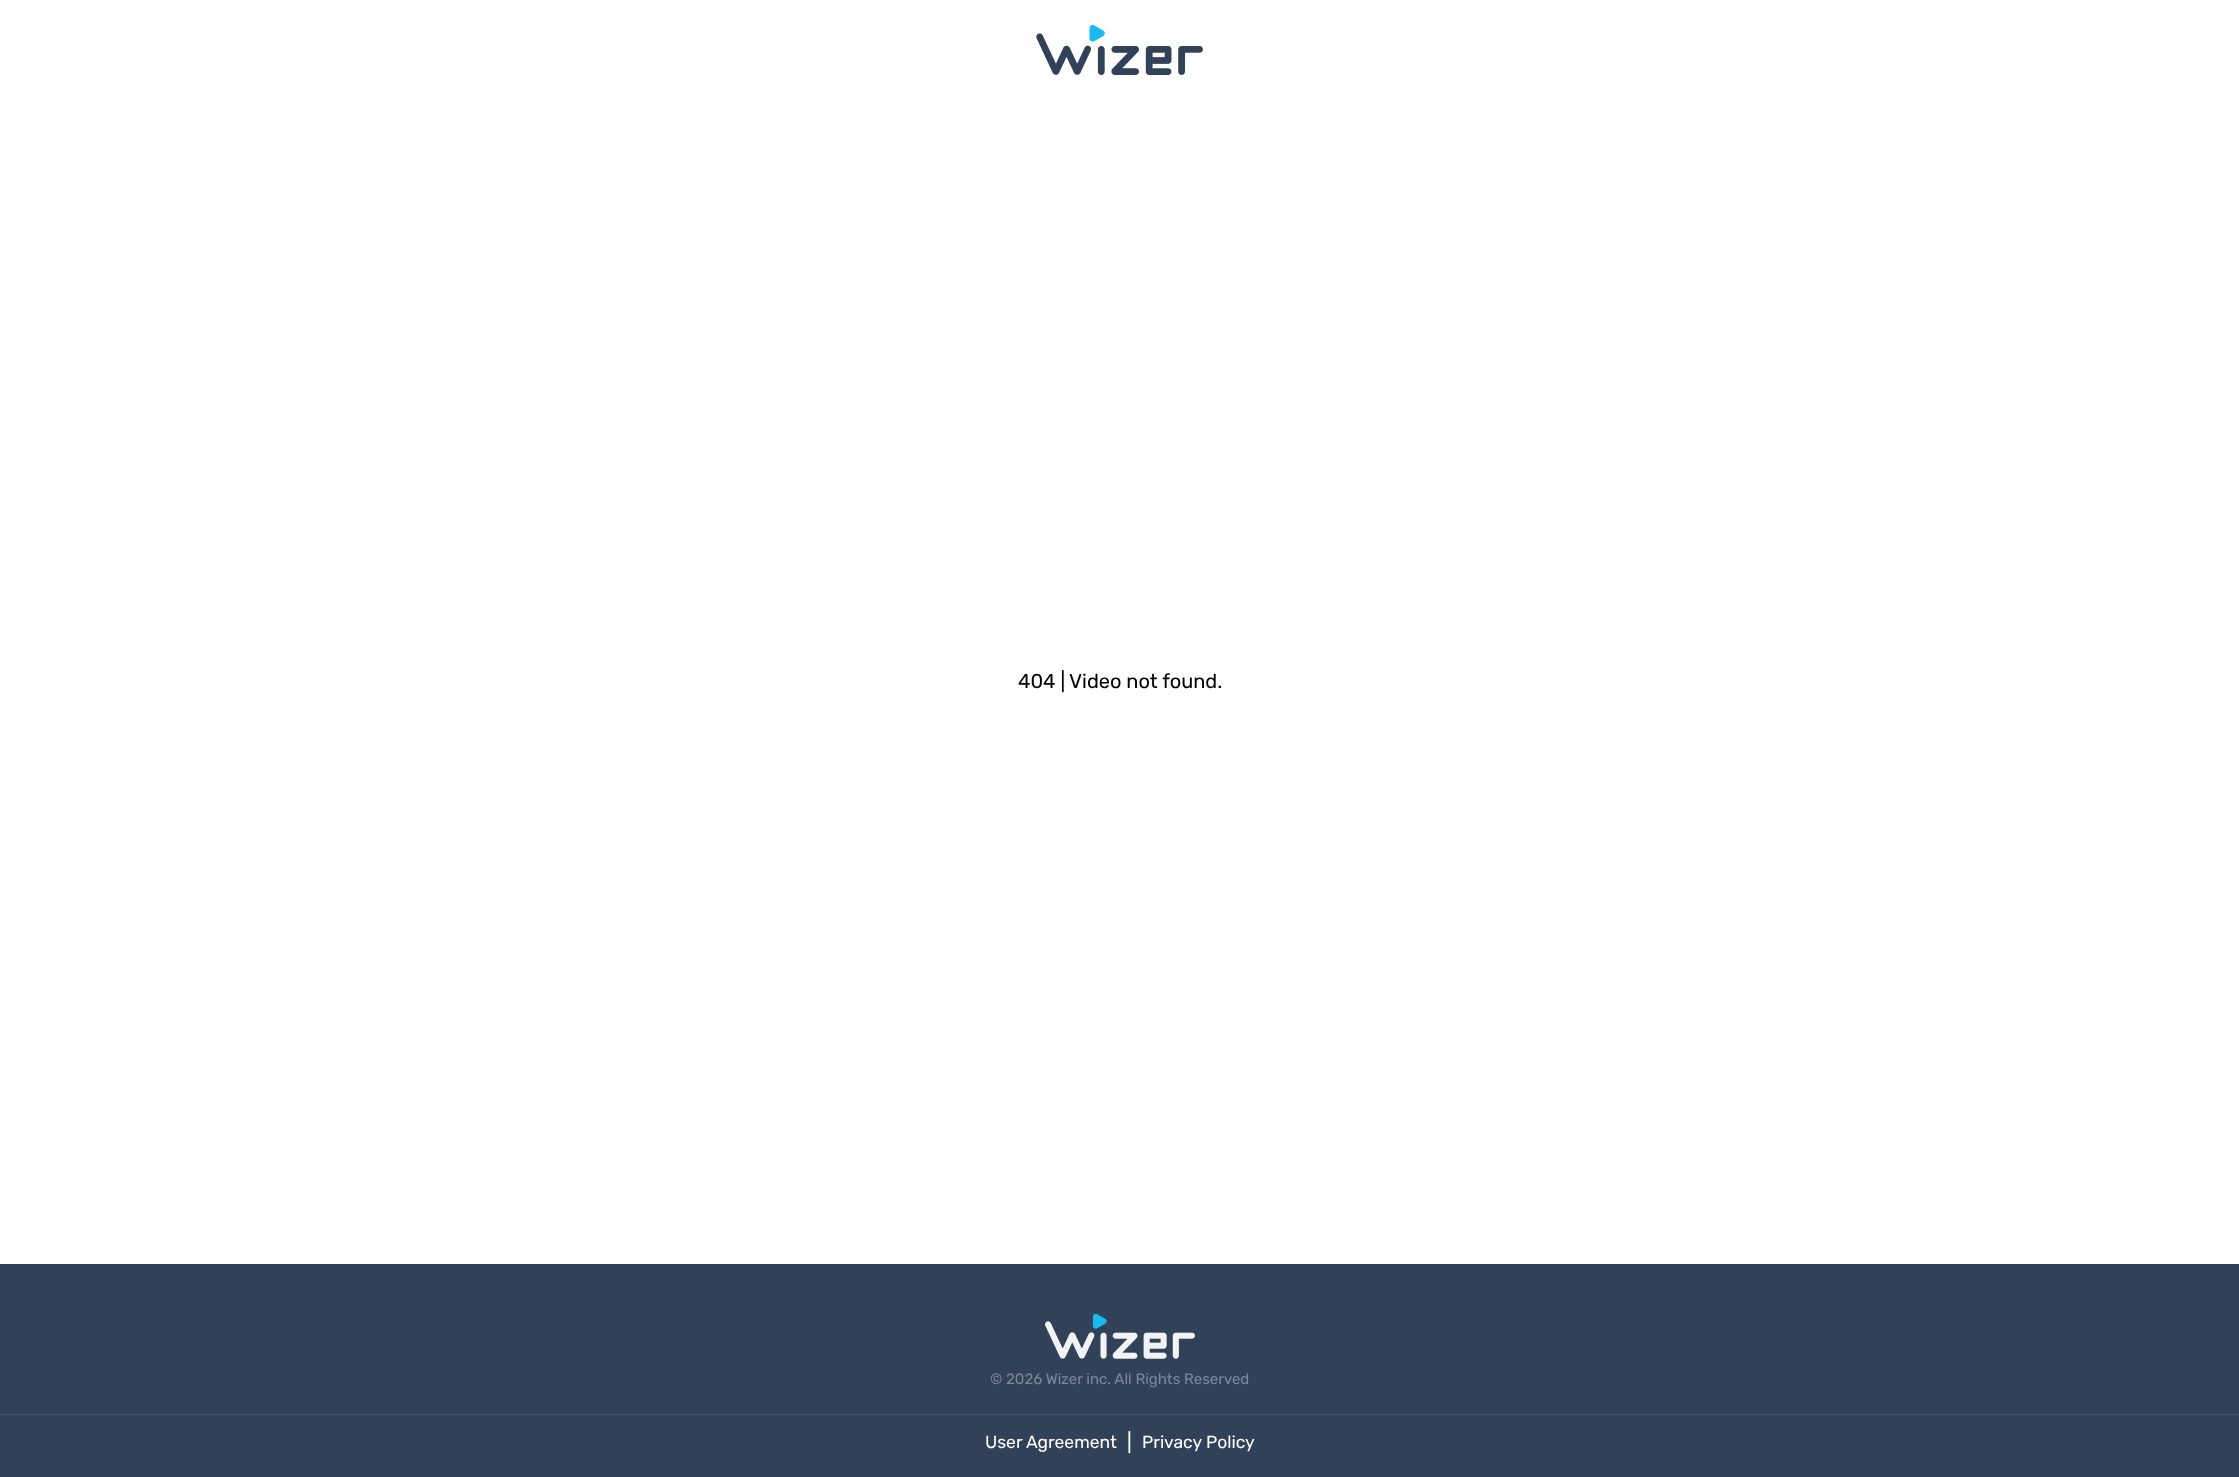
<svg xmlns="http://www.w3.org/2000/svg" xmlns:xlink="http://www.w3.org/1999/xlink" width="2239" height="1477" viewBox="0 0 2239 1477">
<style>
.cls-1{font:20px Rubik;fill:#000000}
.cls-2{font:15px Rubik;fill:#7e8897}
.cls-3{font:17.5px Rubik;fill:#ffffff}
.cls-4{font:20px Rubik;fill:#ffffff}
</style>
<rect width="100%" height="100%" fill="#ffffff"/>
<image xlink:href="image0.png" x="1036" y="25" width="167" height="50"/>
<rect fill="#314157" x="0" y="1264" width="2239" height="213"/>
<image xlink:href="image1.png" x="1045" y="1314" width="150" height="45"/>
<rect fill="#465468" x="0" y="1414" width="2239" height="1"/>
<text class="cls-1" x="1018" y="688">404 |</text>
<text class="cls-1" x="1069" y="688">Video not found.</text>
<text class="cls-2" x="990" y="1384">© 2026 Wizer inc. All Rights Reserved</text>
<text class="cls-3" x="985" y="1448">User Agreement</text>
<text class="cls-4" x="1127" y="1449">|</text>
<text class="cls-3" x="1142" y="1448">Privacy Policy</text>
</svg>
